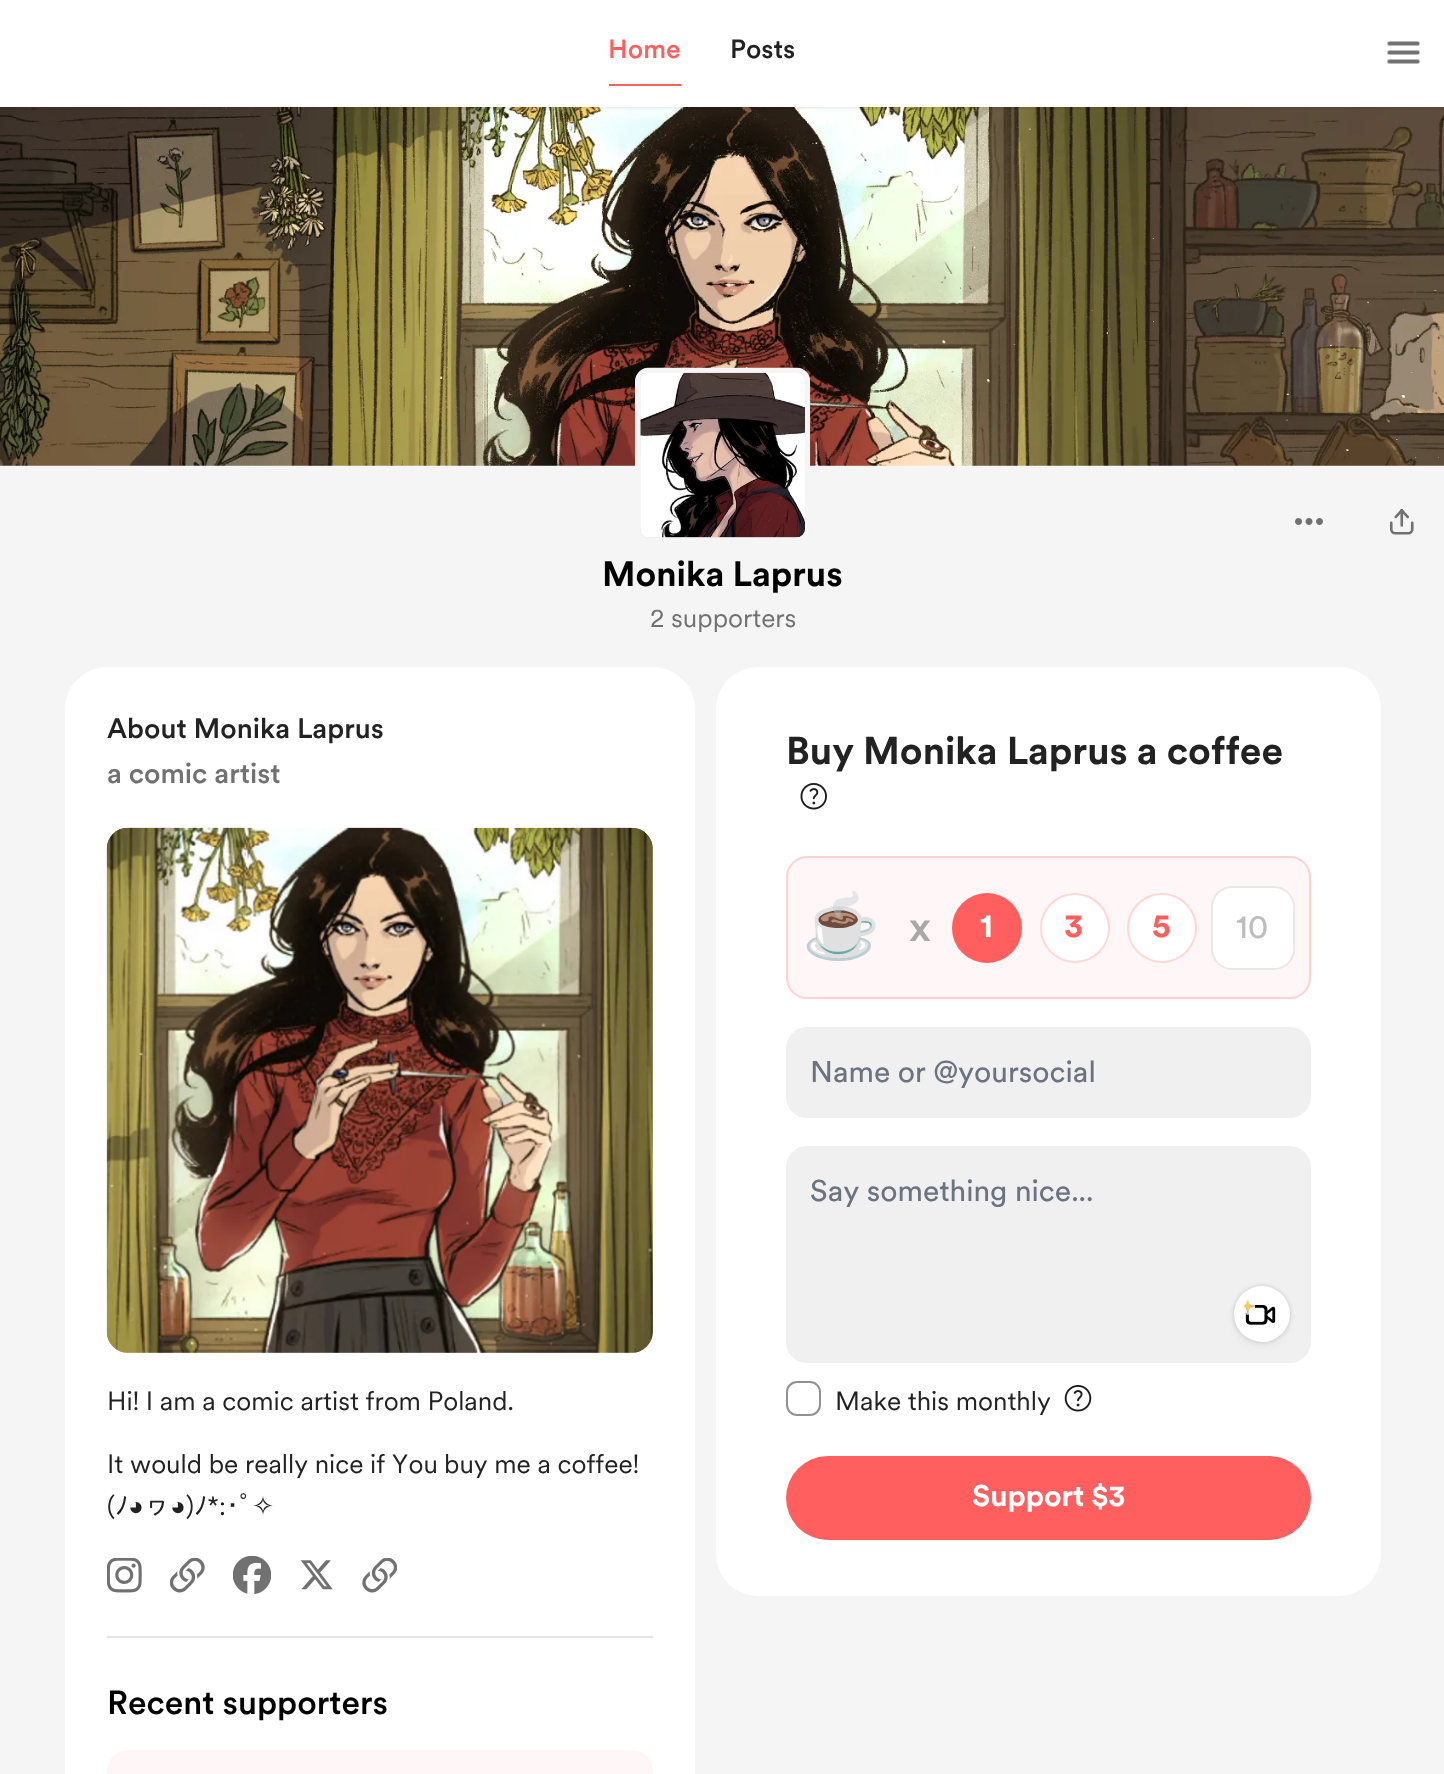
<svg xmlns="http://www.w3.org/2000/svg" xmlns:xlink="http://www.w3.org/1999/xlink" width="1444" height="1774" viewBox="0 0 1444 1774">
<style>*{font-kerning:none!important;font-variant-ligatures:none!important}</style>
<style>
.cls-1{font:500 26.25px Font;fill:#ff5f5f}
.cls-2{font:500 26.25px Font;fill:#222222}
.cls-3{font:bold 35px Font;fill:#000000}
.cls-4{font:26.25px 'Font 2';fill:#717171}
.cls-5{font:500 28px Font;fill:#222222}
.cls-6{font:500 28px Font;fill:#717171}
.cls-7{font:26.25px 'Font 2';fill:#222222}
.cls-8{font:26.25px IPAGothic;fill:#222222}
.cls-9{font:26.25px Liberation Sans;fill:#222222}
.cls-10{font:26.25px DejaVu Sans;fill:#222222}
.cls-11{font:500 33.25px Font;fill:#000000}
.cls-12{font:bold 38.5px Font;fill:#222222}
.cls-13{font:63px Noto Color Emoji;fill:#000000}
.cls-14{font:500 42px Font;fill:#aaa7a7}
.cls-15{font:bold 33.25px Font;fill:#ffffff}
.cls-16{font:bold 33.25px Font;fill:#ff5f5f}
.cls-17{font:33.25px Font;fill:#bdbdbd}
.cls-18{font:29.75px Font;fill:#6b7280}
.cls-19{font:bold 29.75px Font;fill:#ffffff}
</style>
<rect width="100%" height="100%" fill="#f5f5f5"/>
<image xlink:href="image1.png" x="0" y="465" width="1444" height="1"/>
<image xlink:href="image2.png" x="0" y="107" width="1444" height="359"/>
<rect fill="#000000" fill-opacity="0.06" filter="blur(1px)" x="0" y="2" width="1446" height="107"/>
<rect fill="#ffffff" x="0" y="0" width="1444" height="107"/>
<rect fill="#ff5f5f" x="609" y="84" width="72" height="2"/>
<image xlink:href="image0.png" x="1387" y="41" width="33" height="23"/>
<image xlink:href="image3.png" x="1295" y="518" width="28" height="7"/>
<image xlink:href="image4.png" x="1389" y="509" width="25" height="26"/>
<image xlink:href="image5.png" x="635" y="367" width="176" height="175"/>
<rect fill="none" stroke="#f5f5f5" stroke-width="5" x="637.5" y="370.5" width="170" height="170" rx="11.5"/>
<image xlink:href="image6.png" x="640" y="372" width="165" height="166"/>
<rect fill="#ffffff" x="65" y="667" width="630" height="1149" rx="42"/>
<rect fill="#e4e4e4" x="107" y="1636" width="546" height="2"/>
<image xlink:href="image7.png" x="106" y="827" width="547" height="526"/>
<image xlink:href="image8.png" x="106" y="827" width="547" height="526"/>
<image xlink:href="image9.png" x="107" y="1558" width="35" height="35"/>
<image xlink:href="image10.png" x="170" y="1558" width="35" height="35"/>
<image xlink:href="image11.png" x="233" y="1556" width="38" height="38"/>
<image xlink:href="image12.png" x="300" y="1560" width="33" height="30"/>
<image xlink:href="image13.png" x="362" y="1558" width="35" height="35"/>
<rect fill="#fff7f7" x="107" y="1750" width="546" height="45" rx="21"/>
<rect fill="#ffffff" x="716" y="667" width="665" height="929" rx="42"/>
<image xlink:href="image14.png" x="800" y="783" width="27" height="27"/>
<rect fill="#fff7f7" x="786" y="856" width="525" height="143" rx="21"/>
<rect fill="none" stroke="#ff5f5f" stroke-opacity="0.25" stroke-width="2" x="787" y="857" width="523" height="141" rx="20"/>
<circle fill="#ff5f5f" cx="987" cy="928" r="35"/>
<circle fill="none" stroke="#ff5f5f" stroke-opacity="0.25" stroke-width="2" cx="987" cy="928" r="34"/>
<circle fill="#ffffff" cx="1075" cy="928" r="35"/>
<circle fill="none" stroke="#ff5f5f" stroke-opacity="0.25" stroke-width="2" cx="1075" cy="928" r="34"/>
<circle fill="#ffffff" cx="1162" cy="928" r="35"/>
<circle fill="none" stroke="#ff5f5f" stroke-opacity="0.25" stroke-width="2" cx="1162" cy="928" r="34"/>
<rect fill="#ffffff" x="1211" y="886" width="84" height="84" rx="21"/>
<rect fill="none" stroke="#222222" stroke-opacity="0.1" stroke-width="2" x="1212" y="887" width="82" height="82" rx="20"/>
<rect fill="#f0f0f0" x="786" y="1027" width="525" height="91" rx="21"/>
<rect fill="#f0f0f0" x="786" y="1146" width="525" height="217" rx="21"/>
<rect fill="#000000" fill-opacity="0.05" filter="blur(4.5px)" x="1234" y="1290" width="56" height="56" rx="28"/>
<rect fill="#000000" fill-opacity="0.15" filter="blur(2px)" x="1234" y="1286" width="56" height="56" rx="28"/>
<circle fill="#ffffff" cx="1262" cy="1314" r="28"/>
<image xlink:href="image16.png" x="1245" y="1305" width="31" height="20"/>
<image xlink:href="image15.png" x="1244" y="1300" width="11" height="15"/>
<rect fill="none" stroke="#919191" stroke-width="2" x="787" y="1382" width="33" height="33" rx="10"/>
<image xlink:href="image17.png" x="1064" y="1385" width="28" height="27"/>
<rect fill="#ff5f5f" x="786" y="1456" width="525" height="84" rx="42"/>
<text class="cls-1" x="608" y="58">Home</text>
<text class="cls-2" x="730" y="58">Posts</text>
<text class="cls-3" x="602" y="586">Monika Laprus</text>
<text class="cls-4" x="650" y="627">2 supporters</text>
<text class="cls-5" x="107" y="738">About Monika Laprus</text>
<text class="cls-6" x="107" y="783">a comic artist</text>
<text class="cls-7" x="107" y="1410">Hi! I am a comic artist from Poland.</text>
<text class="cls-7" x="107" y="1473">It would be really nice if You</text>
<text class="cls-7" x="444" y="1473">buy me a coffee!</text>
<text class="cls-7" x="107" y="1515">(</text>
<text class="cls-8" x="115" y="1515">ﾉ</text>
<text class="cls-9" x="128" y="1515">◕</text>
<text class="cls-8" x="144" y="1515">ヮ</text>
<text class="cls-9" x="170" y="1515">◕</text>
<text class="cls-7" x="186" y="1515">)</text>
<text class="cls-8" x="194" y="1515">ﾉ</text>
<text class="cls-7" x="207" y="1515">*:</text>
<text class="cls-8" x="226" y="1515">･ﾟ</text>
<text class="cls-10" x="252" y="1515">✧</text>
<text class="cls-11" x="107" y="1714">Recent supporters</text>
<text class="cls-12" x="786" y="764">Buy Monika Laprus a coffee</text>
<text class="cls-13" x="802" y="948">☕</text>
<text class="cls-14" x="909" y="941">x</text>
<text class="cls-15" x="980" y="937">1</text>
<text class="cls-16" x="1064" y="937">3</text>
<text class="cls-16" x="1152" y="937">5</text>
<text class="cls-17" x="1236" y="938">10</text>
<text class="cls-18" x="810" y="1082">Name or @yoursocial</text>
<text class="cls-18" x="810" y="1201">Say something nice...</text>
<text class="cls-7" x="835" y="1410">Make this monthly</text>
<text class="cls-19" x="972" y="1506">Support $3</text>
</svg>
